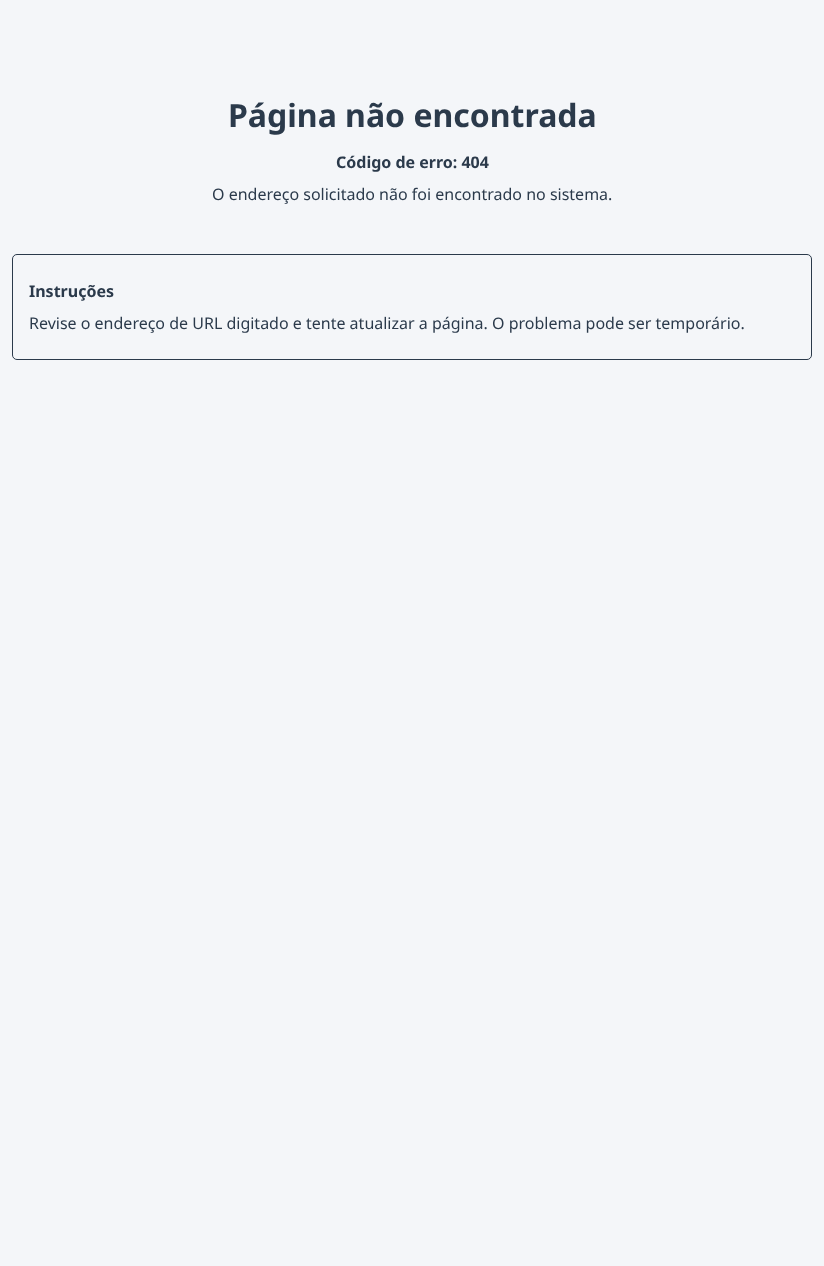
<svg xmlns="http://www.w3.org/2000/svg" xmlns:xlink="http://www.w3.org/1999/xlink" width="824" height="1266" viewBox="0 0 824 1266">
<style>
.cls-1{font:bold 32px Noto Sans;fill:#2b3a4b}
.cls-2{font:bold 16px Noto Sans;fill:#2b3a4b}
.cls-3{font:16px Noto Sans;fill:#2b3a4b}
</style>
<rect width="100%" height="100%" fill="#f4f6f9"/>
<rect fill="none" stroke="#2b3a4b" x="12.5" y="254.5" width="799" height="105" rx="4.5"/>
<text class="cls-1" x="228" y="127">Página não encontrada</text>
<text class="cls-2" x="336" y="168">Código de erro: 404</text>
<text class="cls-3" x="212" y="200">O endereço solicitado não foi encontrado no sistema.</text>
<text class="cls-2" x="29" y="297">Instruções</text>
<text class="cls-3" x="29" y="329">Revise o endereço de URL digitado e tente atualizar a página. O problema pode ser temporário.</text>
</svg>
